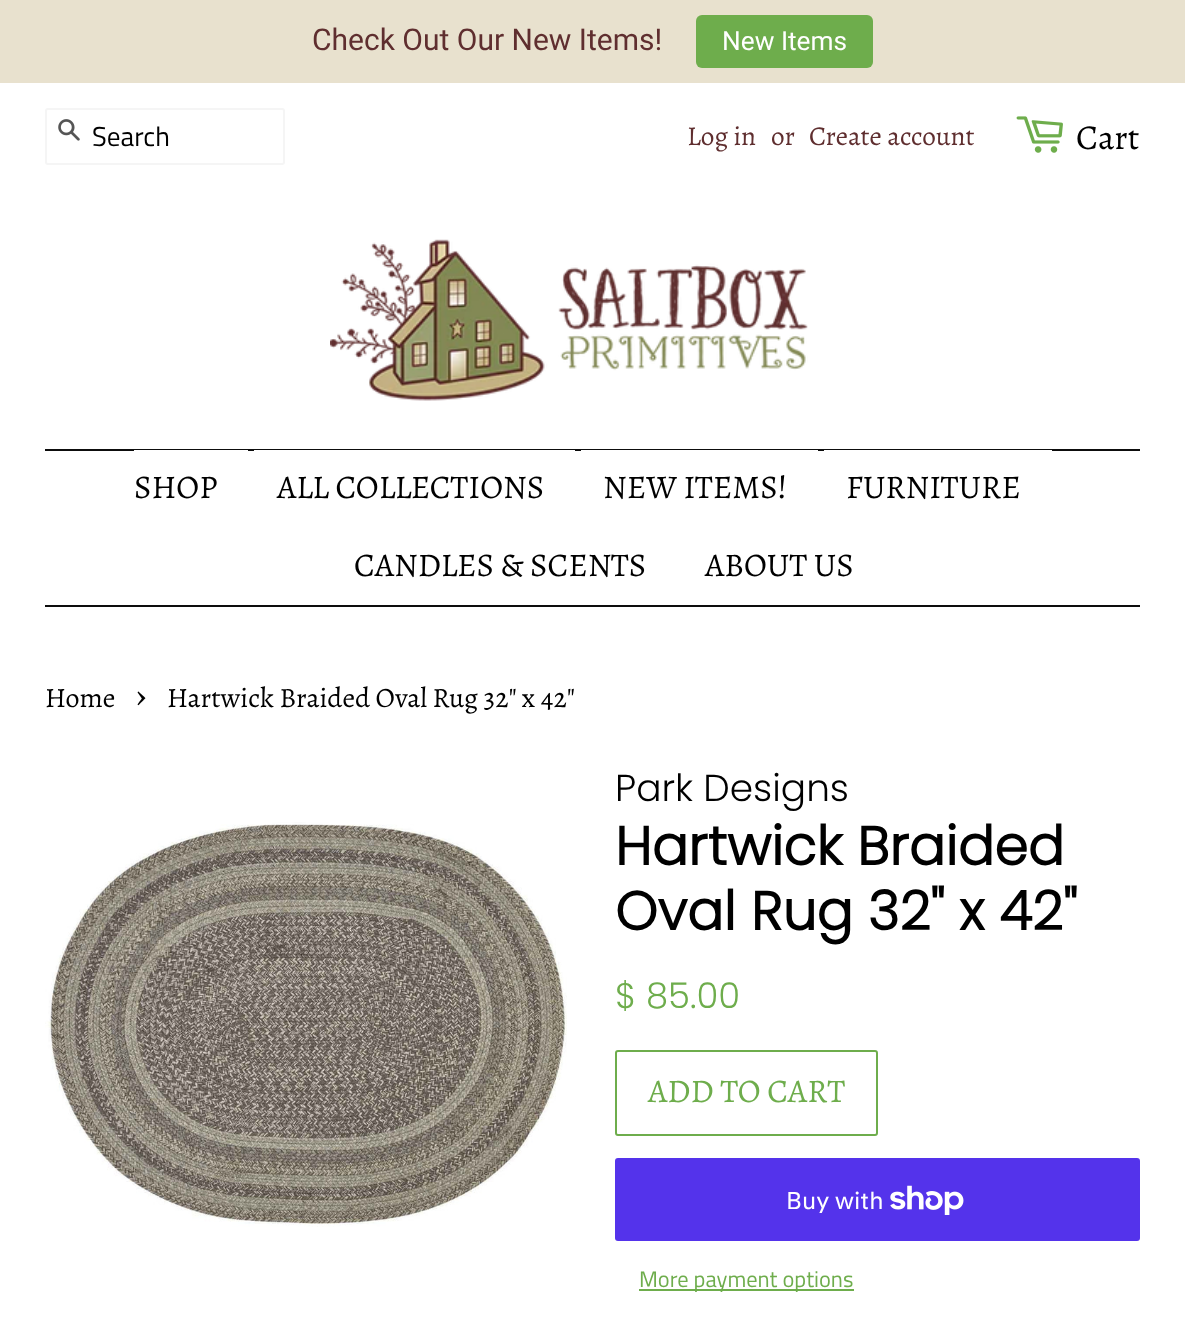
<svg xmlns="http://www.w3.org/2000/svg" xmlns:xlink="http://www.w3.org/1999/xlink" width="1185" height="1341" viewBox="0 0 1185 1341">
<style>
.cls-1{font:30px Roboto;fill:#5f2e2f}
.cls-2{font:26.25px Roboto;fill:#ffffff}
.cls-3{font:27.25px Titillium Web;fill:#000000}
.cls-4{font:27.25px Alegreya;fill:#5f2e2f}
.cls-5{font:35px Alegreya;fill:#000000}
.cls-6{font:33px Alegreya;fill:#000000}
.cls-7{font:28px Alegreya;fill:#000000}
.cls-8{font:39px Alegreya;fill:#000000}
.cls-9{font:300 37.5px Poppins;fill:#000000}
.cls-10{font:bold 54px Poppins;fill:#000000}
.cls-11{font:300 35.5px Poppins;fill:#6ead4c}
.cls-12{font:33px Alegreya;fill:#6ead4c}
.cls-13{font:24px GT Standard;fill:#ffffff}
.cls-14{font:22.5px Titillium Web;fill:#6ead4c}
</style>
<rect width="100%" height="100%" fill="#ffffff"/>
<rect fill="#e8e1ce" x="0" y="0" width="1185" height="83"/>
<rect fill="#6ead4c" x="696" y="15" width="177" height="53" rx="6"/>
<rect fill="none" stroke="#f5f5f5" stroke-width="2" x="46" y="109" width="238" height="55" rx="2"/>
<image xlink:href="image0.png" x="58" y="119" width="22" height="22"/>
<image xlink:href="image1.png" x="1016" y="116" width="47" height="37"/>
<image xlink:href="image2.png" x="330" y="239" width="478" height="162"/>
<rect fill="#0d0d0d" x="45" y="449" width="1095" height="2"/>
<rect fill="#0d0d0d" x="45" y="605" width="1095" height="2"/>
<rect fill="#ffffff" x="134" y="450" width="114" height="1"/>
<rect fill="#ffffff" x="254" y="450" width="321" height="1"/>
<rect fill="#ffffff" x="581" y="450" width="237" height="1"/>
<rect fill="#ffffff" x="824" y="450" width="228" height="1"/>
<image xlink:href="image3.png" x="45" y="822" width="522" height="405"/>
<rect fill="none" stroke="#6ead4c" stroke-width="2" x="616" y="1051" width="261" height="84" rx="2"/>
<rect fill="#5433eb" x="615" y="1158" width="525" height="83" rx="3"/>
<image xlink:href="image4.png" x="890" y="1185" width="74" height="30"/>
<rect fill="#6ead4c" x="639" y="1289" width="215" height="2"/>
<text class="cls-1" x="312" y="50">Check Out Our New Items!</text>
<text class="cls-2" x="722" y="50">New Items</text>
<text class="cls-3" x="92" y="146">Search</text>
<text class="cls-4" x="687" y="145">Log in</text>
<text class="cls-4" x="771" y="145">or</text>
<text class="cls-4" x="809" y="145">Create account</text>
<text class="cls-5" x="1076" y="149">Cart</text>
<text class="cls-6" x="134" y="498">SHOP</text>
<text class="cls-6" x="277" y="498">ALL COLLECTIONS</text>
<text class="cls-6" x="603" y="498">NEW ITEMS!</text>
<text class="cls-6" x="846" y="498">FURNITURE</text>
<text class="cls-6" x="354" y="576">CANDLES &amp; SCENTS</text>
<text class="cls-6" x="705" y="576">ABOUT US</text>
<text class="cls-7" x="45" y="707">Home</text>
<text class="cls-8" x="136" y="707">›</text>
<text class="cls-7" x="167" y="707">Hartwick Braided Oval Rug 32" x 42"</text>
<text class="cls-9" x="615" y="801">Park Designs</text>
<text class="cls-10"><tspan x="615" y="865">Hartwick Braided</tspan><tspan x="615" y="930">Oval Rug 32" x 42"</tspan></text>
<text class="cls-11" x="615" y="1008">$ 85.00</text>
<text class="cls-12" x="648" y="1102">ADD TO CART</text>
<text class="cls-13" x="786" y="1209">Buy with</text>
<text class="cls-14" x="639" y="1287">More payment options</text>
</svg>
